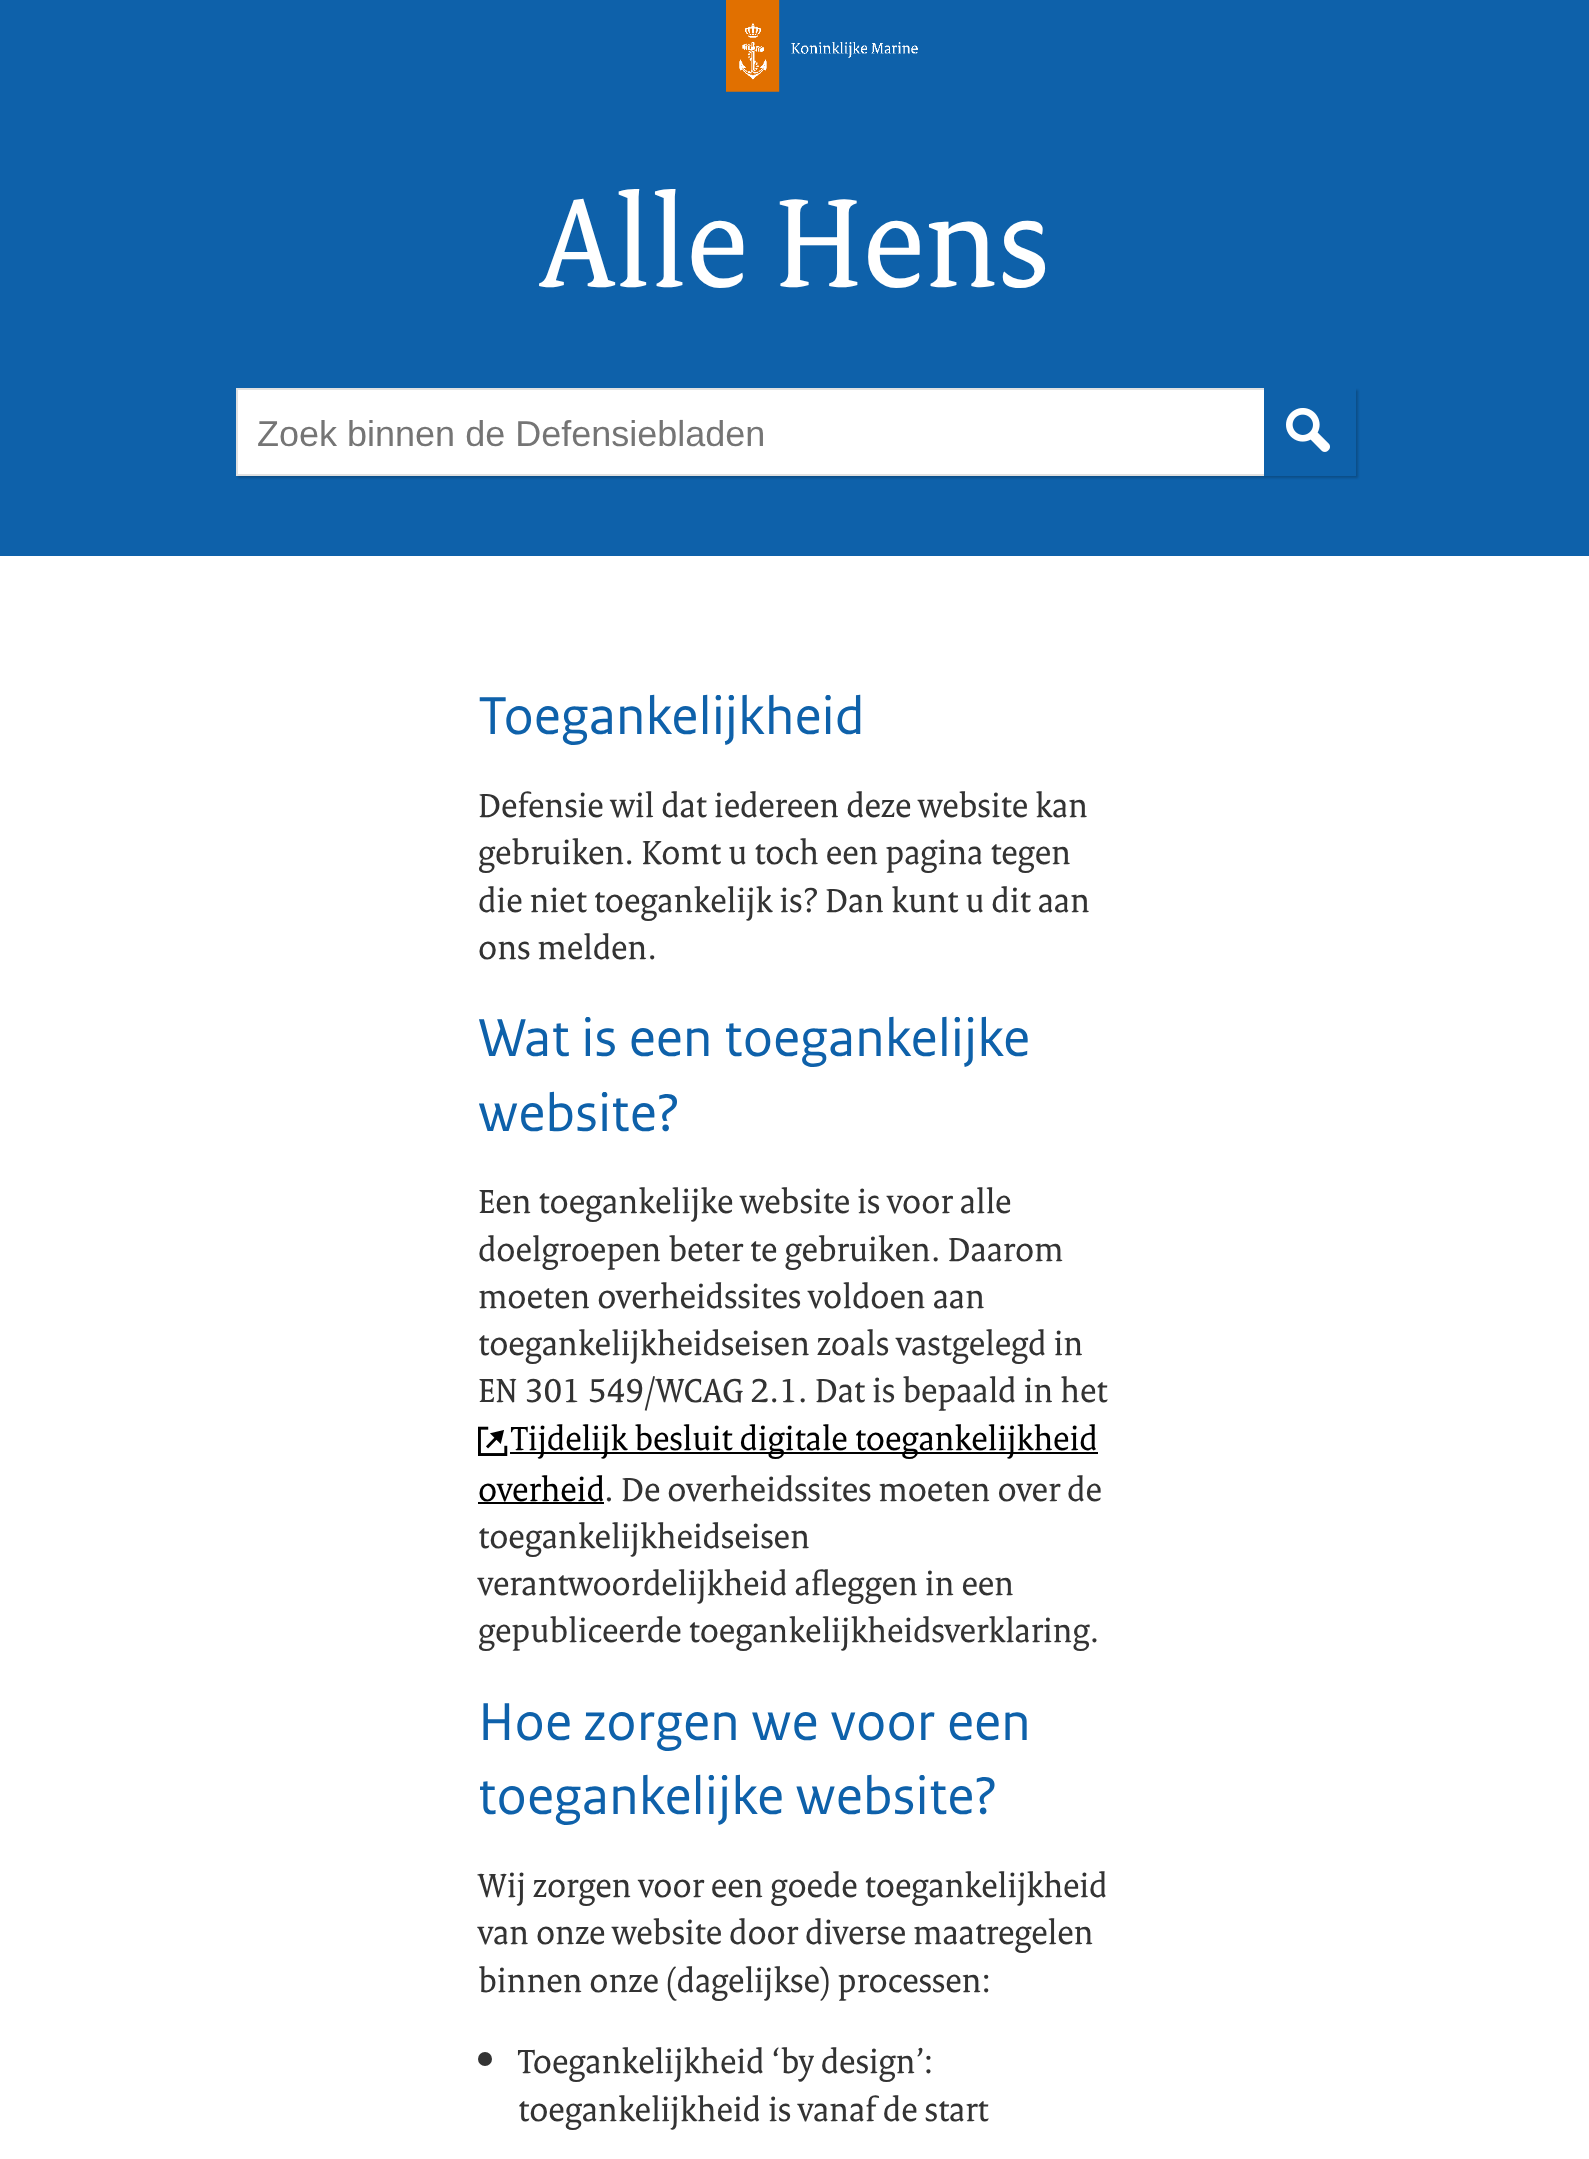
<svg xmlns="http://www.w3.org/2000/svg" xmlns:xlink="http://www.w3.org/1999/xlink" width="1589" height="2159" viewBox="0 0 1589 2159">
<style>
.cls-1{font:135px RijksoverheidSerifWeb;fill:#ffffff}
.cls-2{font:36px Liberation Sans;fill:#757575}
.cls-3{font:56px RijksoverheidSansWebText;fill:#0e61aa}
.cls-4{font:36px RijksoverheidSerifWeb;fill:#333333}
.cls-5{font:36px RijksoverheidSerifWeb;fill:#000000}
</style>
<rect width="100%" height="100%" fill="#ffffff"/>
<rect fill="#0e61aa" x="0" y="0" width="1589" height="556"/>
<image xlink:href="image0.png" x="726" y="0" width="192" height="92"/>
<rect fill="#000000" fill-opacity="0.2" filter="blur(1px)" x="238" y="390" width="1120" height="88"/>
<rect fill="#ffffff" x="238" y="390" width="1026" height="84"/>
<rect fill="none" stroke="#e1e1e1" stroke-width="2" x="237" y="389" width="1118" height="86"/>
<rect fill="#0e61aa" x="1264" y="388" width="92" height="88"/>
<image xlink:href="image1.png" x="1286" y="408" width="44" height="44"/>
<image xlink:href="image2.png" x="478" y="1426" width="30" height="30"/>
<rect fill="#000000" x="510" y="1452" width="588" height="2"/>
<rect fill="#000000" x="478" y="1502" width="126" height="2"/>
<circle fill="#333333" cx="485" cy="2059" r="7"/>
<text class="cls-1" x="541" y="286">Alle Hens</text>
<text class="cls-2" x="257" y="446">Zoek binnen de Defensiebladen</text>
<text class="cls-3" x="478" y="734">Toegankelijkheid</text>
<text class="cls-4"><tspan x="478" y="817">Defensie wil dat iedereen deze website kan</tspan><tspan x="478" y="864">gebruiken. Komt u toch een pagina tegen</tspan><tspan x="478" y="912">die niet toegankelijk is? Dan kunt u dit aan</tspan><tspan x="478" y="959">ons melden.</tspan></text>
<text class="cls-3"><tspan x="478" y="1056">Wat is een toegankelijke</tspan><tspan x="478" y="1131">website?</tspan></text>
<text class="cls-4"><tspan x="478" y="1213">Een toegankelijke website is voor alle</tspan><tspan x="478" y="1261">doelgroepen beter te gebruiken. Daarom</tspan><tspan x="478" y="1308">moeten overheidssites voldoen aan</tspan><tspan x="478" y="1355">toegankelijkheidseisen zoals vastgelegd in</tspan><tspan x="478" y="1402">EN 301 549/WCAG 2.1. Dat is bepaald in het</tspan></text>
<text class="cls-5" x="511" y="1450">Tijdelijk besluit digitale toegankelijkheid</text>
<text class="cls-5" x="478" y="1501">overheid</text>
<text class="cls-4" x="604" y="1501">. De overheidssites moeten over de</text>
<text class="cls-4"><tspan x="478" y="1548">toegankelijkheidseisen</tspan><tspan x="478" y="1595">verantwoordelijkheid afleggen in een</tspan><tspan x="478" y="1642">gepubliceerde toegankelijkheidsverklaring.</tspan></text>
<text class="cls-3"><tspan x="478" y="1740">Hoe zorgen we voor een</tspan><tspan x="478" y="1814">toegankelijke website?</tspan></text>
<text class="cls-4"><tspan x="478" y="1897">Wij zorgen voor een goede toegankelijkheid</tspan><tspan x="478" y="1944">van onze website door diverse maatregelen</tspan><tspan x="478" y="1992">binnen onze (dagelijkse) processen:</tspan></text>
<text class="cls-4"><tspan x="518" y="2073">Toegankelijkheid ‘by design’:</tspan><tspan x="518" y="2121">toegankelijkheid is vanaf de start</tspan></text>
</svg>
